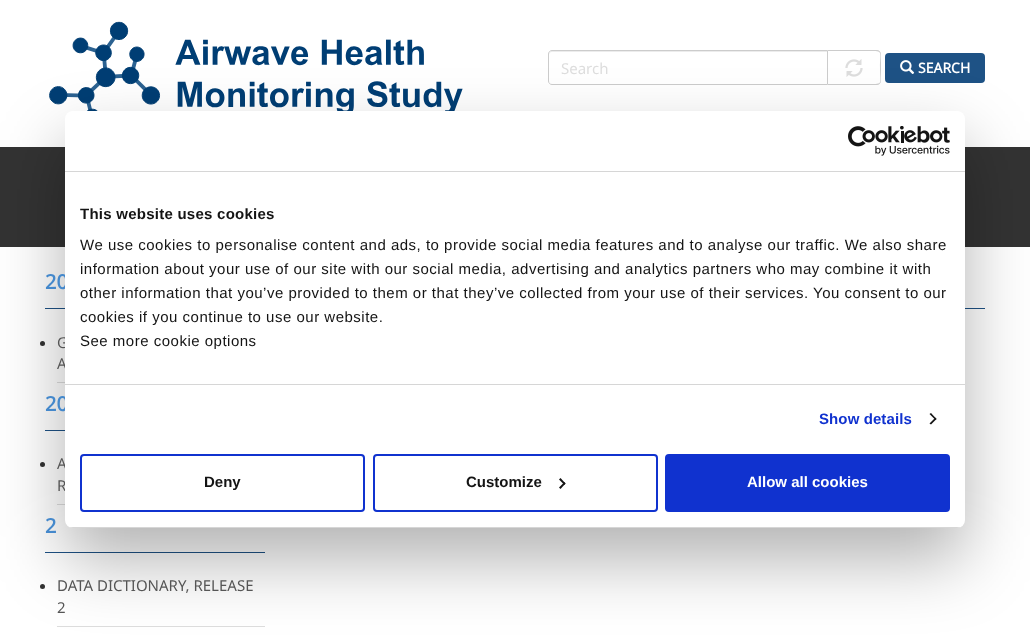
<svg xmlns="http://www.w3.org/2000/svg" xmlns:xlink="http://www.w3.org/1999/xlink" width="1030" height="638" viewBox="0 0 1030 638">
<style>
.cls-1{font:15px Noto Sans;fill:#dddddd}
.cls-2{font:bold 14px Noto Sans;fill:#ffffff}
.cls-3{font:bold 20px Noto Sans;fill:#4488cb}
.cls-4{font:15px Noto Sans;fill:#555555}
.cls-5{font:bold 15px Liberation Sans;letter-spacing:0.25px;fill:#141414}
.cls-6{font:15px Liberation Sans;letter-spacing:0.5px;fill:#141414}
.cls-7{font:bold 15px Liberation Sans;letter-spacing:0.1px;fill:#1032cf}
.cls-8{font:bold 15px Liberation Sans;fill:#141414}
.cls-9{font:bold 15px Liberation Sans;fill:#ffffff}
</style>
<defs>
<clipPath id="clip1"><rect x="65" y="111" width="900" height="417" rx="8"/></clipPath>
</defs>
<rect width="100%" height="100%" fill="#ffffff"/>
<image xlink:href="image0.png" x="49" y="21" width="414" height="90"/>
<path fill="#ececec" d="M552 52H827V51H552C550 51 549 52 549 54V55C549 53 550 52 552 52Z"/>
<path fill="none" stroke="#cccccc" d="M552 50.5H827.5V84.5H552C550 84.5 548.5 83 548.5 81V54C548.5 52 550 50.5 552 50.5Z"/>
<path fill="#cccccc" fill-rule="evenodd" d="M828 50H877C879 50 881 52 881 54V81C881 83 879 85 877 85H828ZM828 51H869C884 51 880 51 880 68C880 84 884 84 869 84H828Z"/>
<image xlink:href="image1.png" x="845" y="59" width="18" height="18"/>
<rect fill="#1e5285" x="885" y="53" width="100" height="30" rx="4"/>
<image xlink:href="image2.png" x="900" y="60" width="15" height="14"/>
<rect fill="#333333" x="0" y="147" width="1030" height="100"/>
<rect fill="#1e5285" x="45" y="308" width="20" height="1"/>
<circle fill="#333333" cx="42.5" cy="343.5" r="2.5"/>
<rect fill="#dddddd" x="57" y="382" width="8" height="1"/>
<rect fill="#1e5285" x="45" y="430" width="20" height="1"/>
<circle fill="#333333" cx="42.5" cy="464.5" r="2.5"/>
<rect fill="#dddddd" x="57" y="504" width="8" height="1"/>
<rect fill="#1e5285" x="45" y="552" width="220" height="1"/>
<circle fill="#333333" cx="42.5" cy="586.5" r="2.5"/>
<rect fill="#dddddd" x="57" y="626" width="208" height="1"/>
<rect fill="#1e5285" x="965" y="308" width="20" height="1"/>
<rect fill="#000000" fill-opacity="0.3" filter="blur(34px)" x="65" y="143" width="900" height="417" rx="8"/>
<text class="cls-1" x="561" y="74">Search</text>
<text class="cls-2" x="918" y="73">SEARCH</text>
<text class="cls-3" x="45" y="289">20</text>
<text class="cls-4"><tspan x="57" y="348">G</tspan><tspan x="57" y="369">A</tspan></text>
<text class="cls-3" x="45" y="411">20</text>
<text class="cls-4"><tspan x="57" y="469">A</tspan><tspan x="57" y="491">R</tspan></text>
<text class="cls-3" x="45" y="533">2</text>
<text class="cls-4"><tspan x="57" y="591">DATA DICTIONARY, RELEASE</tspan><tspan x="57" y="613">2</tspan></text>
<rect fill="#ffffff" x="65" y="111" width="900" height="417" rx="8"/>
<rect fill="#d6d6d6" x="65" y="171" width="900" height="1"/>
<image xlink:href="image3.png" x="848" y="126" width="102" height="30"/>
<rect fill="#d6d6d6" x="65" y="384" width="900" height="1"/>
<text class="cls-5" x="80" y="219">This website uses cookies</text>
<text class="cls-6"><tspan x="80" y="250">We use cookies to personalise content and ads, to provide social media features and to analyse our traffic. We also share</tspan><tspan x="80" y="274">information about your use of our site with our social media, advertising and analytics partners who may combine it with</tspan><tspan x="80" y="298">other information that you’ve provided to them or that they’ve collected from your use of their services. You consent to our</tspan><tspan x="80" y="322">cookies if you continue to use our website.</tspan><tspan x="80" y="346">See more cookie options</tspan></text>
<text class="cls-7" x="819" y="424">Show details</text>
<path fill="#141414" d="M931 413L936.5 419L935.5 420L929.5 414Z"/>
<path fill="#141414" d="M935.5 417.5L936.5 419L931 424.5L929.5 423.5Z"/>
<g clip-path="url(#clip1)">
<rect fill="#d6d6d6" x="65" y="527" width="900" height="1"/>
</g>
<rect fill="none" stroke="#1032cf" stroke-width="2" x="81" y="455" width="283" height="56" rx="3"/>
<text class="cls-8" x="204" y="487">Deny</text>
<rect fill="none" stroke="#1032cf" stroke-width="2" x="374" y="455" width="283" height="56" rx="3"/>
<text class="cls-8" x="466" y="487">Customize</text>
<path fill="#141414" d="M560.5 478L565.5 483.5L564.5 485L559 479.5Z"/>
<path fill="#141414" d="M564.5 482L565.5 483.5L560.5 489L559 487.5Z"/>
<rect fill="#1032cf" stroke="#1032cf" stroke-width="2" x="666" y="455" width="283" height="56" rx="3"/>
<text class="cls-9" x="747" y="487">Allow all cookies</text>
</svg>
